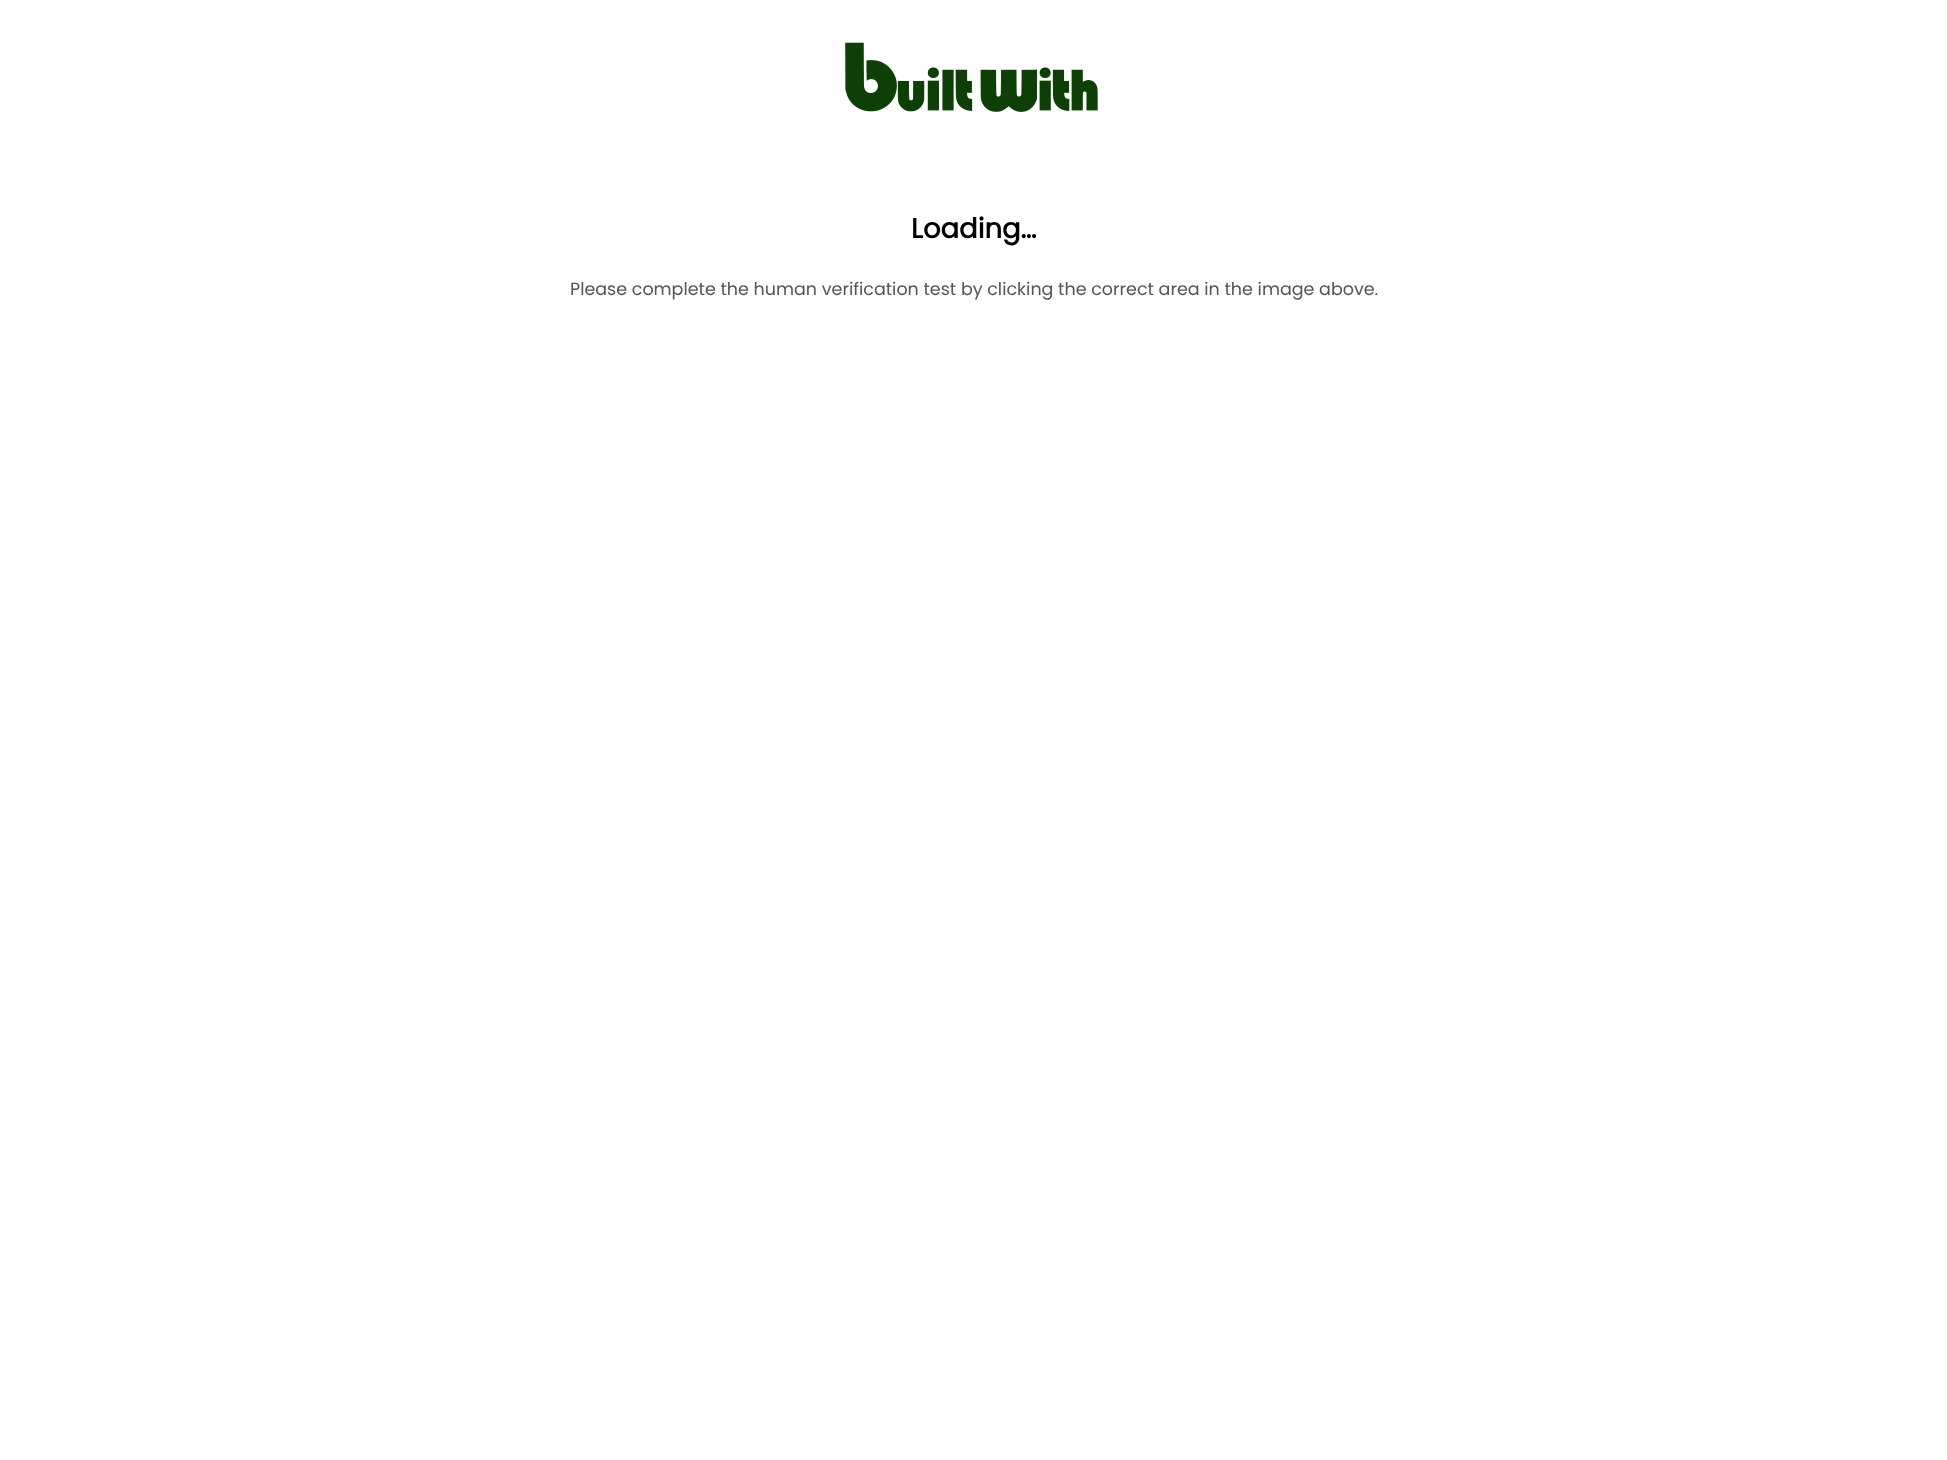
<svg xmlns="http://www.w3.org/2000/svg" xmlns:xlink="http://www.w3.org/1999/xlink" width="1947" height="1460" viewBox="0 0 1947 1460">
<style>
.cls-1{font:bold 27.5px Poppins;fill:#000000}
.cls-2{font:17.5px Poppins;fill:#555555}
</style>
<rect width="100%" height="100%" fill="#ffffff"/>
<image xlink:href="image0.png" x="845" y="42" width="253" height="70"/>
<text class="cls-1" x="911" y="238">Loading…</text>
<text class="cls-2" x="570" y="295">Please complete the human verification test by clicking the correct area in the image above.</text>
</svg>
